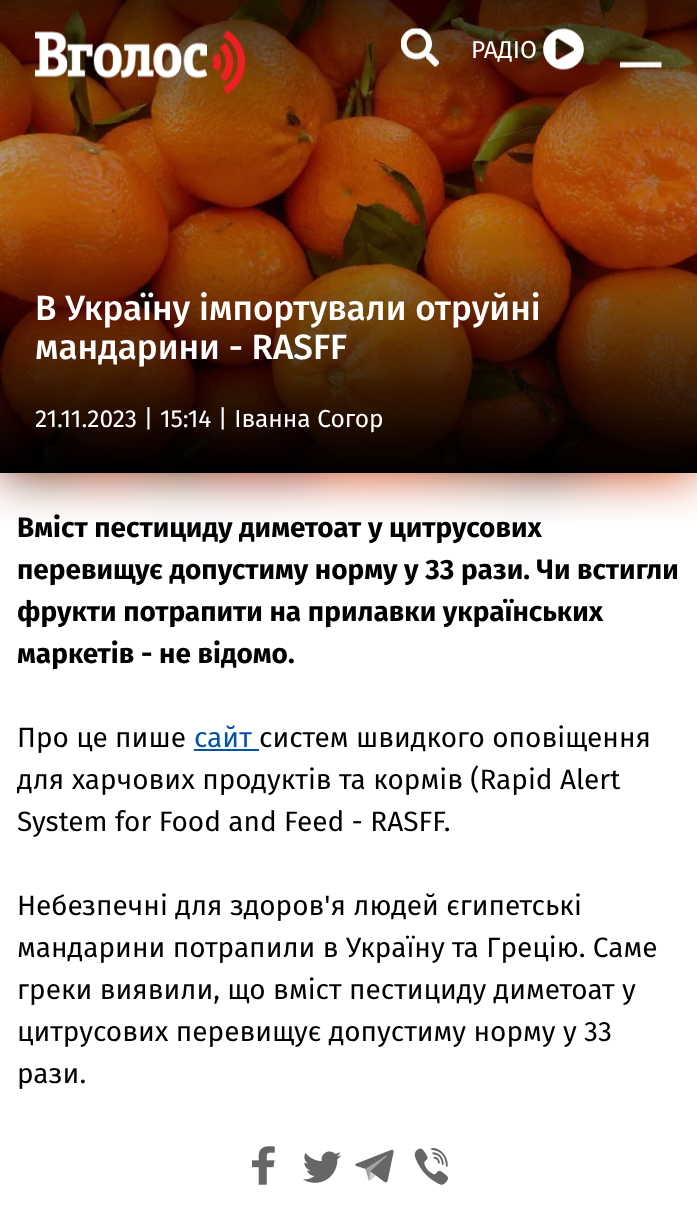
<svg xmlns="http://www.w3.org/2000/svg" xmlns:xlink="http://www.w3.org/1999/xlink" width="697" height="1207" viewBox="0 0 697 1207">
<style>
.cls-1{font:24.5px Fira Sans;fill:#ffffff}
.cls-2{font:500 35px Fira Sans;fill:#ffffff}
.cls-3{font:bold 28px Fira Sans;fill:#000000}
.cls-4{font:28px Fira Sans;fill:#000000}
.cls-5{font:28px Fira Sans;fill:#0451a8}
</style>
<defs>
<linearGradient id="g1" gradientUnits="userSpaceOnUse" x1="349" y1="122" x2="349" y2="473"><stop offset="0" stop-color="#000000" stop-opacity="0"/><stop offset="1" stop-color="#000000"/></linearGradient>
<linearGradient id="g2" gradientUnits="userSpaceOnUse" x1="349" y1="280" x2="349" y2="0"><stop offset="0" stop-color="#000000" stop-opacity="0"/><stop offset="0.25" stop-color="#000000" stop-opacity="0.05"/><stop offset="1" stop-color="#000000" stop-opacity="0.75"/></linearGradient>
</defs>
<rect width="100%" height="100%" fill="#ffffff"/>
<image xlink:href="image4.png" x="0" y="0" width="697" height="471"/>
<rect fill="url(#g1)" x="0" y="130" width="697" height="343"/>
<rect fill="url(#g2)" x="0" y="0" width="697" height="250"/>
<image xlink:href="image0.png" x="35" y="29" width="210" height="66"/>
<image xlink:href="image1.png" x="401" y="28" width="38" height="39"/>
<image xlink:href="image2.png" x="543" y="28" width="41" height="42"/>
<image xlink:href="image3.png" x="620" y="61" width="42" height="7"/>
<rect fill="#0451a8" x="194" y="749" width="65" height="2"/>
<image xlink:href="image6.png" x="252" y="1146" width="23" height="39"/>
<image xlink:href="image7.png" x="303" y="1151" width="39" height="32"/>
<image xlink:href="image8.png" x="355" y="1149" width="39" height="34"/>
<image xlink:href="image9.png" x="414" y="1148" width="34" height="37"/>
<text class="cls-1" x="471" y="58">РАДІО</text>
<text class="cls-2"><tspan x="35" y="320">В Україну імпортували отруйні</tspan><tspan x="35" y="359">мандарини - RASFF</tspan></text>
<text class="cls-1" x="35" y="427">21.11.2023 | 15:14 | Іванна Согор</text>
<text class="cls-3" x="17" y="537">Вміст пестициду диметоат у цитрусових</text>
<image xlink:href="image5.png" x="0" y="473" width="697" height="48"/>
<text class="cls-3"><tspan x="17" y="579">перевищує допустиму норму у 33 рази. Чи встигли</tspan><tspan x="17" y="621">фрукти потрапити на прилавки українських</tspan><tspan x="17" y="663">маркетів - не відомо.</tspan></text>
<text class="cls-4" x="17" y="747">Про це пише</text>
<text class="cls-5" x="194" y="747">сайт</text>
<text class="cls-4" x="259" y="747">систем швидкого оповіщення</text>
<text class="cls-4"><tspan x="17" y="789">для харчових продуктів та кормів (Rapid Alert</tspan><tspan x="17" y="831">System for Food and Feed - RASFF.</tspan></text>
<text class="cls-4"><tspan x="17" y="915">Небезпечні для здоров'я людей єгипетські</tspan><tspan x="17" y="957">мандарини потрапили в Україну та Грецію. Саме</tspan><tspan x="17" y="999">греки виявили, що вміст пестициду диметоат у</tspan><tspan x="17" y="1041">цитрусових перевищує допустиму норму у 33</tspan><tspan x="17" y="1083">рази.</tspan></text>
</svg>
